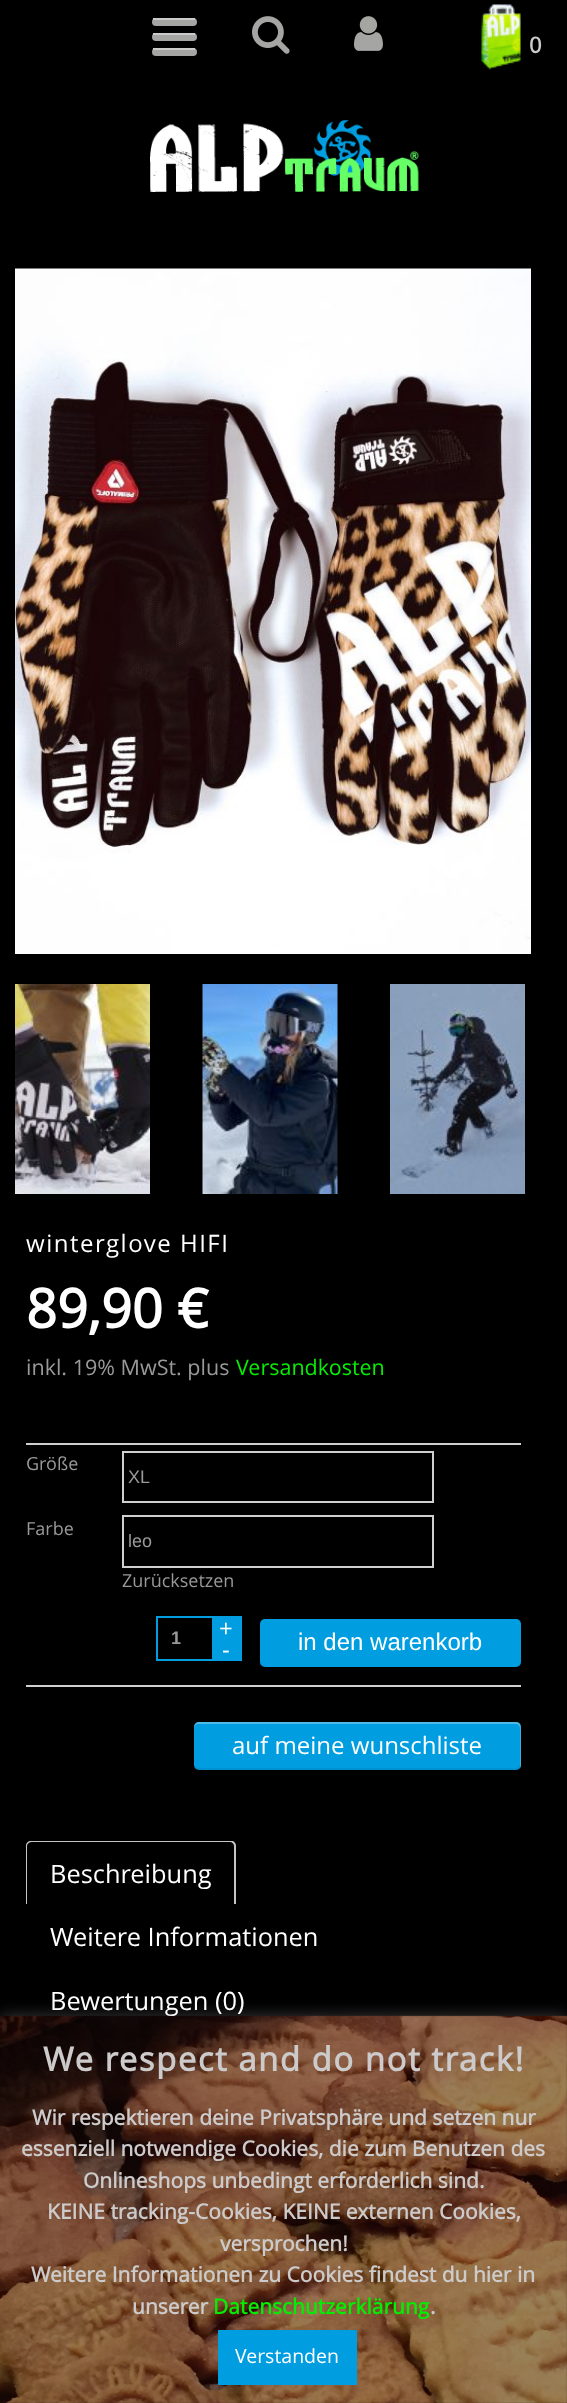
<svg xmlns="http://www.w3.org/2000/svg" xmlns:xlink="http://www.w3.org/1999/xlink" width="567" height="2403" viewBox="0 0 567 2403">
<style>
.cls-1{font:bold 22px Open Sans;fill:#cccaca}
.cls-2{font:24px Open Sans;letter-spacing:1.5px;fill:#ffffff}
.cls-3{font:bold 54px Open Sans;fill:#ffffff}
.cls-4{font:21.5px Open Sans;fill:#999999}
.cls-5{font:21.5px Open Sans;fill:#07ec04}
.cls-6{font:18px Open Sans;fill:#999999}
.cls-7{font:18px Liberation Sans;fill:#999999}
.cls-8{font:24px Open Sans;fill:#ffffff}
.cls-9{font:bold 18px Liberation Sans;fill:#999999}
.cls-10{font:24px Liberation Sans;fill:#ffffff}
.cls-11{font:25.4px Open Sans;fill:#ffffff}
.cls-12{font:bold 33px Open Sans;letter-spacing:1.5px;fill:#cccaca}
.cls-13{font:bold 21px Open Sans;fill:#cccaca}
.cls-14{font:bold 21px Open Sans;fill:#07ec04}
.cls-15{font:19.5px Open Sans;fill:#ffffff}
</style>
<defs>
<clipPath id="clip1"><rect x="156" y="1616" width="86" height="45"/></clipPath>
</defs>
<rect width="100%" height="100%" fill="#000000"/>
<rect fill="#a5a5a3" x="152" y="18" width="45" height="8" rx="4"/>
<rect fill="#cacaca" x="153" y="18" width="42" height="2"/>
<rect fill="#a5a5a3" x="152" y="33" width="45" height="8" rx="4"/>
<rect fill="#cacaca" x="153" y="33" width="42" height="2"/>
<rect fill="#a5a5a3" x="152" y="48" width="45" height="8" rx="4"/>
<rect fill="#cacaca" x="153" y="48" width="42" height="2"/>
<image xlink:href="image0.png" x="252" y="16" width="38" height="38"/>
<image xlink:href="image1.png" x="354" y="16" width="29" height="35"/>
<image xlink:href="image2.png" x="481" y="4" width="40" height="66"/>
<image xlink:href="image3.png" x="150" y="120" width="269" height="72"/>
<image xlink:href="image4.png" x="15" y="268" width="516" height="686"/>
<image xlink:href="image5.png" x="15" y="984" width="135" height="210"/>
<image xlink:href="image6.png" x="202" y="984" width="136" height="210"/>
<image xlink:href="image7.png" x="390" y="984" width="135" height="210"/>
<rect fill="#cfcfcf" x="26" y="1443" width="495" height="2"/>
<rect fill="#cfcfcf" x="26" y="1685" width="495" height="2"/>
<rect fill="none" stroke="#cfcfcf" stroke-width="2" x="123" y="1452" width="310" height="50"/>
<rect fill="none" stroke="#cfcfcf" stroke-width="2" x="123" y="1516" width="310" height="51"/>
<g clip-path="url(#clip1)">
<rect fill="none" stroke="#009ee0" stroke-width="2" x="157" y="1617" width="85" height="43"/>
</g>
<rect fill="#009ee0" x="212" y="1618" width="29" height="41"/>
<rect fill="#009ee0" x="260" y="1619" width="261" height="48" rx="5"/>
<rect fill="#009ee0" x="194" y="1722" width="327" height="48" rx="5"/>
<path fill="#ffffff" fill-opacity="0.3" d="M198 1724H516C518 1724 520 1726 520 1728V1768C521 1767 521 1766 521 1765V1727C521 1724 519 1722 516 1722H199C196 1722 194 1724 194 1727V1728C194 1726 196 1724 198 1724Z"/>
<path fill="#000000" fill-opacity="0.07" d="M194 1764V1765C194 1768 196 1770 199 1770H516C519 1770 521 1768 521 1765V1727C521 1726 521 1725 520 1724V1764C520 1766 518 1768 516 1768H198C196 1768 194 1766 194 1764Z"/>
<path fill="#c4c5c5" d="M32 1842H230C232 1842 234 1844 234 1846V1904H236V1846C236 1844 235 1842 233 1841H31C28 1841 26 1843 26 1846V1904H27V1846C27 1844 29 1842 32 1842Z"/>
<rect fill="#acabab" fill-opacity="0.3" filter="blur(7.5px)" x="0" y="2015" width="567" height="387"/>
<text class="cls-1" x="529" y="53">0</text>
<text class="cls-2" x="26" y="1252">winterglove HIFI</text>
<text class="cls-3" x="26" y="1328">89,90 €</text>
<text class="cls-4" x="26" y="1375">inkl. 19% MwSt. plus</text>
<text class="cls-5" x="236" y="1375">Versandkosten</text>
<text class="cls-6" x="26" y="1470">Größe</text>
<text class="cls-7" x="128" y="1483">XL</text>
<text class="cls-6" x="26" y="1535">Farbe</text>
<text class="cls-7" x="128" y="1547">leo</text>
<text class="cls-6" x="122" y="1587">Zurücksetzen</text>
<text class="cls-8" x="219" y="1637">+</text>
<text class="cls-9" x="171" y="1644">1</text>
<text class="cls-8" x="222" y="1658">-</text>
<text class="cls-10" x="298" y="1650">in den warenkorb</text>
<text class="cls-8" x="232" y="1754">auf meine wunschliste</text>
<text class="cls-11" x="50" y="1883">Beschreibung</text>
<text class="cls-11" x="50" y="1946">Weitere Informationen</text>
<text class="cls-11" x="50" y="2010">Bewertungen (0)</text>
<image xlink:href="image8.png" x="0" y="2015" width="567" height="388"/>
<rect fill="#000000" fill-opacity="0.4" x="0" y="2016" width="567" height="77"/>
<text class="cls-12" x="43" y="2071">We respect and do not track!</text>
<rect fill="#000000" fill-opacity="0.4" x="0" y="2093" width="567" height="310"/>
<text class="cls-13" x="32" y="2125">Wir respektieren deine Privatsphäre und setzen nur</text>
<text class="cls-13" x="21" y="2156">essenziell notwendige Cookies, die zum Benutzen des</text>
<text class="cls-13" x="83" y="2188">Onlineshops unbedingt erforderlich sind.</text>
<text class="cls-13" x="47" y="2219">KEINE tracking-Cookies, KEINE externen Cookies,</text>
<text class="cls-13" x="220" y="2251">versprochen!</text>
<text class="cls-13" x="31" y="2282">Weitere Informationen zu Cookies findest du hier in</text>
<text class="cls-13" x="132" y="2314">unserer</text>
<text class="cls-14" x="213" y="2314">Datenschutzerklärung</text>
<text class="cls-13" x="430" y="2314">.</text>
<rect fill="#009ee0" x="218" y="2330" width="139" height="55"/>
<text class="cls-15" x="235" y="2363">Verstanden</text>
</svg>
